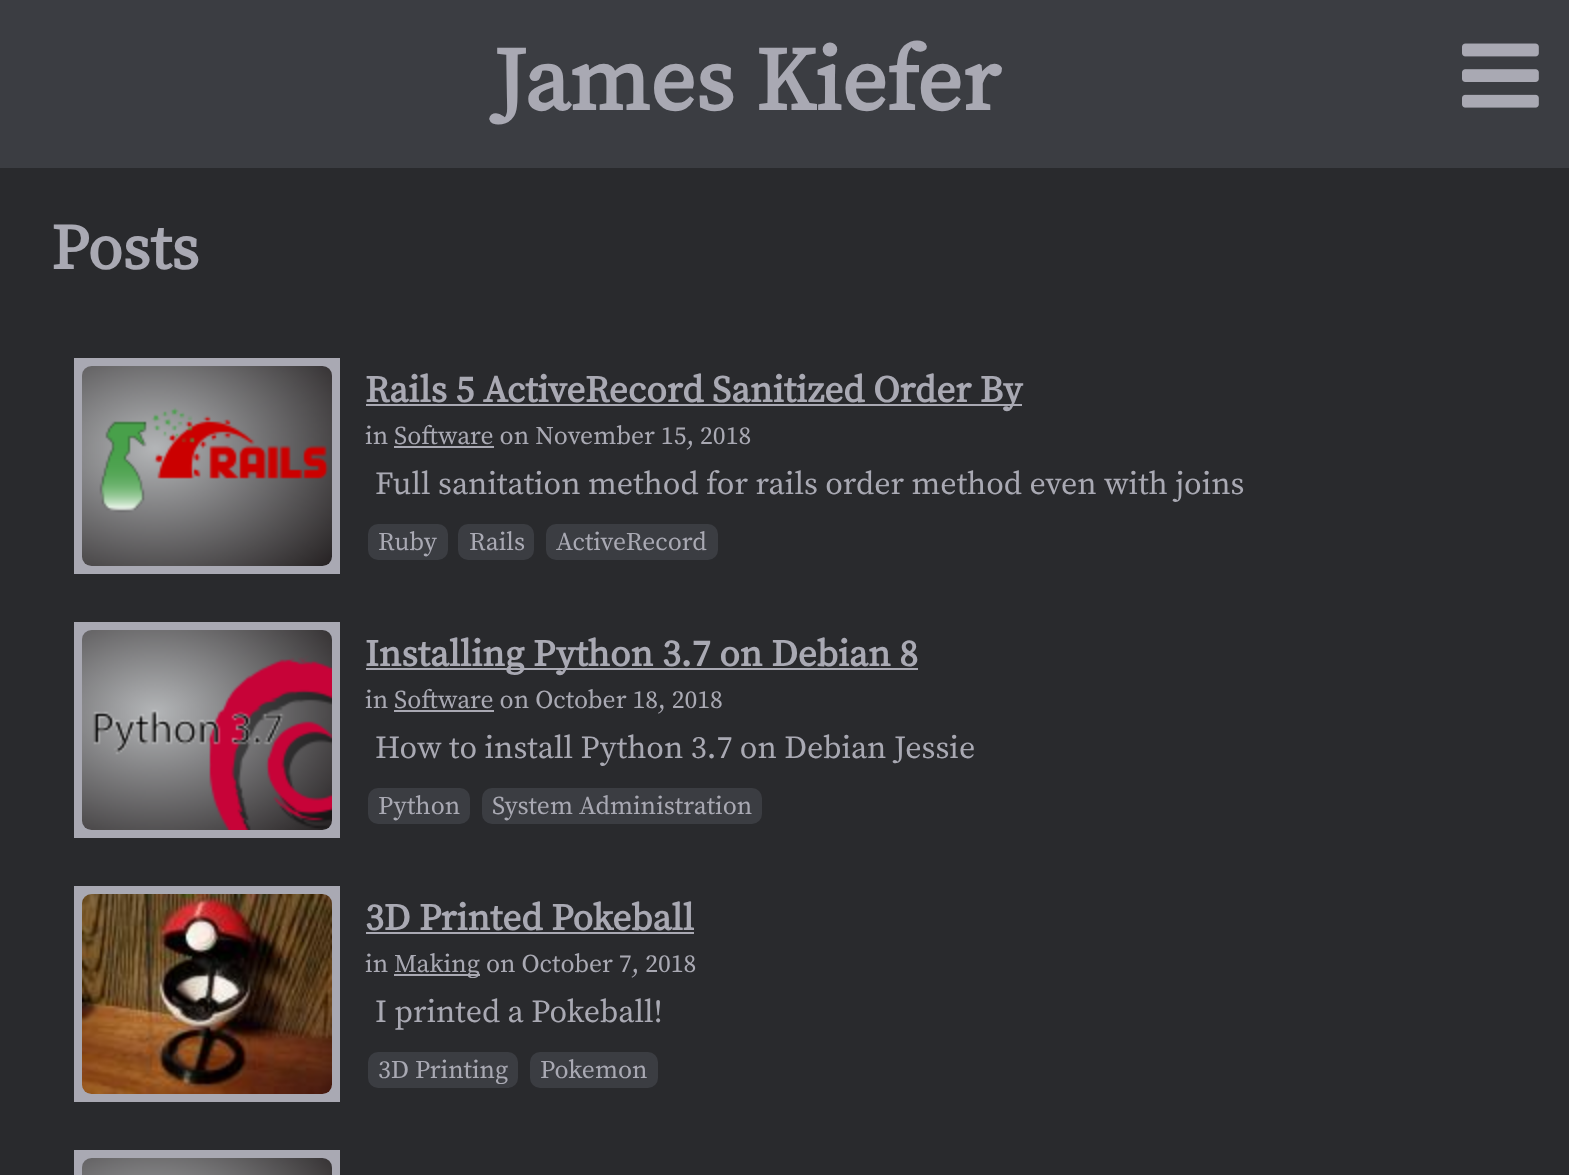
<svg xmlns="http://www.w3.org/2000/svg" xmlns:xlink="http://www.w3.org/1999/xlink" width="1569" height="1175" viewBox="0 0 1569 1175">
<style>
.cls-1{font:bold 89.5px Source Serif Pro;fill:#a9a9b3}
.cls-2{font:bold 64px Source Serif Pro;fill:#a9a9b3}
.cls-3{font:bold 37.4px Source Serif Pro;fill:#a9a9b3}
.cls-4{font:25.6px Source Serif Pro;fill:#a9a9b3}
.cls-5{font:32px Source Serif Pro;fill:#a9a9b3}
</style>
<rect width="100%" height="100%" fill="#292a2d"/>
<rect fill="#3b3d42" x="0" y="0" width="1569" height="168"/>
<image xlink:href="image0.png" x="1462" y="43" width="77" height="65"/>
<rect fill="#a9a9b3" x="74" y="358" width="266" height="216"/>
<image xlink:href="image1.png" x="82" y="366" width="250" height="200"/>
<rect fill="#a9a9b3" x="366" y="404" width="656" height="2"/>
<rect fill="#a9a9b3" x="394" y="446" width="100" height="2"/>
<rect fill="#3b3d42" x="368" y="524" width="80" height="36" rx="10"/>
<rect fill="#3b3d42" x="458" y="524" width="76" height="36" rx="10"/>
<rect fill="#3b3d42" x="546" y="524" width="172" height="36" rx="10"/>
<rect fill="#a9a9b3" x="74" y="622" width="266" height="216"/>
<image xlink:href="image2.png" x="82" y="630" width="250" height="200"/>
<rect fill="#a9a9b3" x="366" y="668" width="552" height="2"/>
<rect fill="#a9a9b3" x="394" y="710" width="100" height="2"/>
<rect fill="#3b3d42" x="368" y="788" width="102" height="36" rx="10"/>
<rect fill="#3b3d42" x="482" y="788" width="280" height="36" rx="10"/>
<rect fill="#a9a9b3" x="74" y="886" width="266" height="216"/>
<image xlink:href="image3.png" x="82" y="894" width="250" height="200"/>
<rect fill="#a9a9b3" x="366" y="932" width="328" height="2"/>
<rect fill="#a9a9b3" x="394" y="974" width="86" height="2"/>
<rect fill="#3b3d42" x="368" y="1052" width="150" height="36" rx="10"/>
<rect fill="#3b3d42" x="530" y="1052" width="128" height="36" rx="10"/>
<rect fill="#a9a9b3" x="74" y="1150" width="266" height="25"/>
<image xlink:href="image4.png" x="82" y="1158" width="250" height="17"/>
<text class="cls-1" x="493" y="110">James Kiefer</text>
<text class="cls-2" x="51" y="269">Posts</text>
<text class="cls-3" x="365" y="402">Rails 5 ActiveRecord Sanitized Order By</text>
<text class="cls-4" x="365" y="444">in Software on November 15, 2018</text>
<text class="cls-5" x="375" y="494">Full sanitation method for rails order method even with joins</text>
<text class="cls-4" x="378" y="550">Ruby</text>
<text class="cls-4" x="469" y="550">Rails</text>
<text class="cls-4" x="556" y="550">ActiveRecord</text>
<text class="cls-3" x="365" y="666">Installing Python 3.7 on Debian 8</text>
<text class="cls-4" x="365" y="708">in Software on October 18, 2018</text>
<text class="cls-5" x="375" y="758">How to install Python 3.7 on Debian Jessie</text>
<text class="cls-4" x="378" y="814">Python</text>
<text class="cls-4" x="492" y="814">System Administration</text>
<text class="cls-3" x="365" y="930">3D Printed Pokeball</text>
<text class="cls-4" x="365" y="972">in</text>
<text class="cls-4" x="394" y="972">Making on October 7, 2018</text>
<text class="cls-5" x="375" y="1022">I printed a Pokeball!</text>
<text class="cls-4" x="378" y="1078">3D Printing</text>
<text class="cls-4" x="540" y="1078">Pokemon</text>
</svg>
